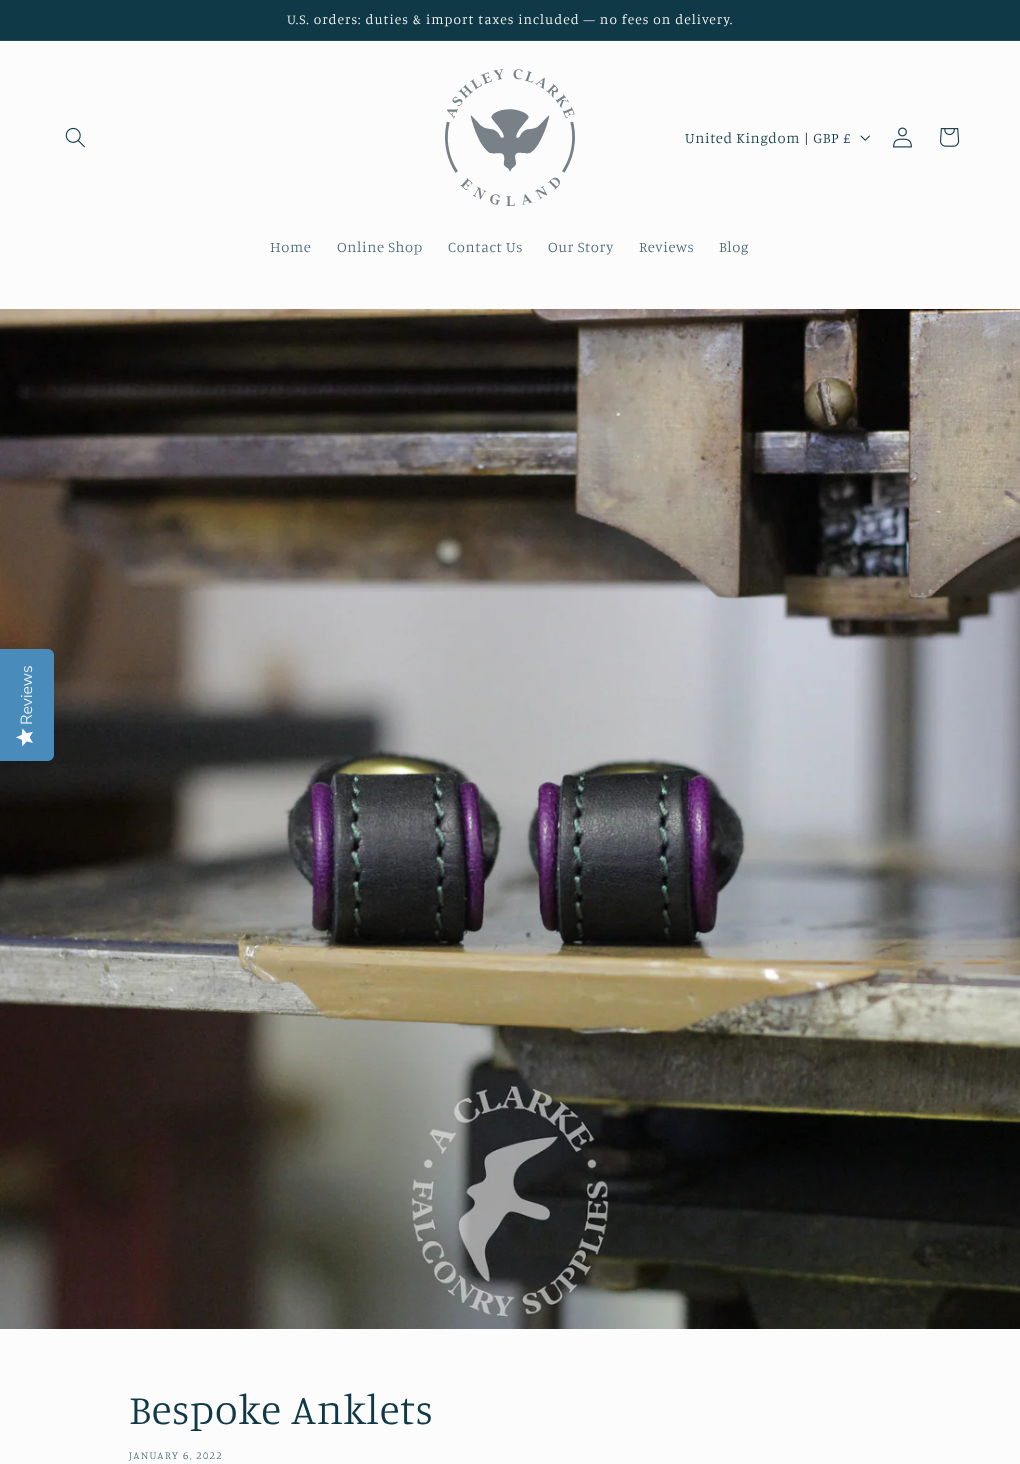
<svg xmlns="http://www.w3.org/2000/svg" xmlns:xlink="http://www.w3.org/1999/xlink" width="1020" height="1464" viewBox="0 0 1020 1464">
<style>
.cls-1{font:300 13.65px Manuale;letter-spacing:1.05px;fill:#fcfcfc}
.cls-2{font:300 14.75px Manuale;letter-spacing:0.6px;fill:#103948}
.cls-3{font:300 14.75px Manuale;letter-spacing:0.6px;fill:#4b6a75}
.cls-4{font:300 16px Nunito Sans;fill:#fcfcfc}
.cls-5{font:300 42px Manuale;letter-spacing:0.6px;fill:#103948}
.cls-6{font:300 10.5px Manuale;letter-spacing:1.4px;fill:#4b6a75}
</style>
<rect width="100%" height="100%" fill="#fcfcfc"/>
<rect fill="#103948" x="0" y="0" width="1020" height="40"/>
<rect fill="#234956" x="0" y="40" width="1020" height="1"/>
<image xlink:href="image0.png" x="65" y="127" width="20" height="21"/>
<image xlink:href="image1.png" x="445" y="69" width="130" height="137"/>
<image xlink:href="image2.png" x="860" y="135" width="10" height="6"/>
<image xlink:href="image3.png" x="893" y="127" width="19" height="21"/>
<image xlink:href="image4.png" x="940" y="128" width="20" height="19"/>
<image xlink:href="image6.png" x="0" y="309" width="1020" height="1020"/>
<path fill="#498cbc" d="M0 761V649H48C51 649 54 652 54 655V755C54 758 51 761 48 761Z"/>
<image xlink:href="image5.png" x="16" y="728" width="17" height="18"/>
<text class="cls-1" x="287" y="24">U.S. orders: duties &amp; import taxes included — no fees on delivery.</text>
<text class="cls-2" x="685" y="143">United Kingdom | GBP £</text>
<text class="cls-3" x="270" y="252">Home</text>
<text class="cls-3" x="337" y="252">Online Shop</text>
<text class="cls-3" x="448" y="252">Contact Us</text>
<text class="cls-3" x="548" y="252">Our Story</text>
<text class="cls-3" x="639" y="252">Reviews</text>
<text class="cls-3" x="719" y="252">Blog</text>
<text class="cls-4" x="32" y="725" transform="rotate(-90 32 725)">Reviews</text>
<text class="cls-5" x="129" y="1424">Bespoke Anklets</text>
<text class="cls-6" x="129" y="1459">JANUARY 6, 2022</text>
</svg>
